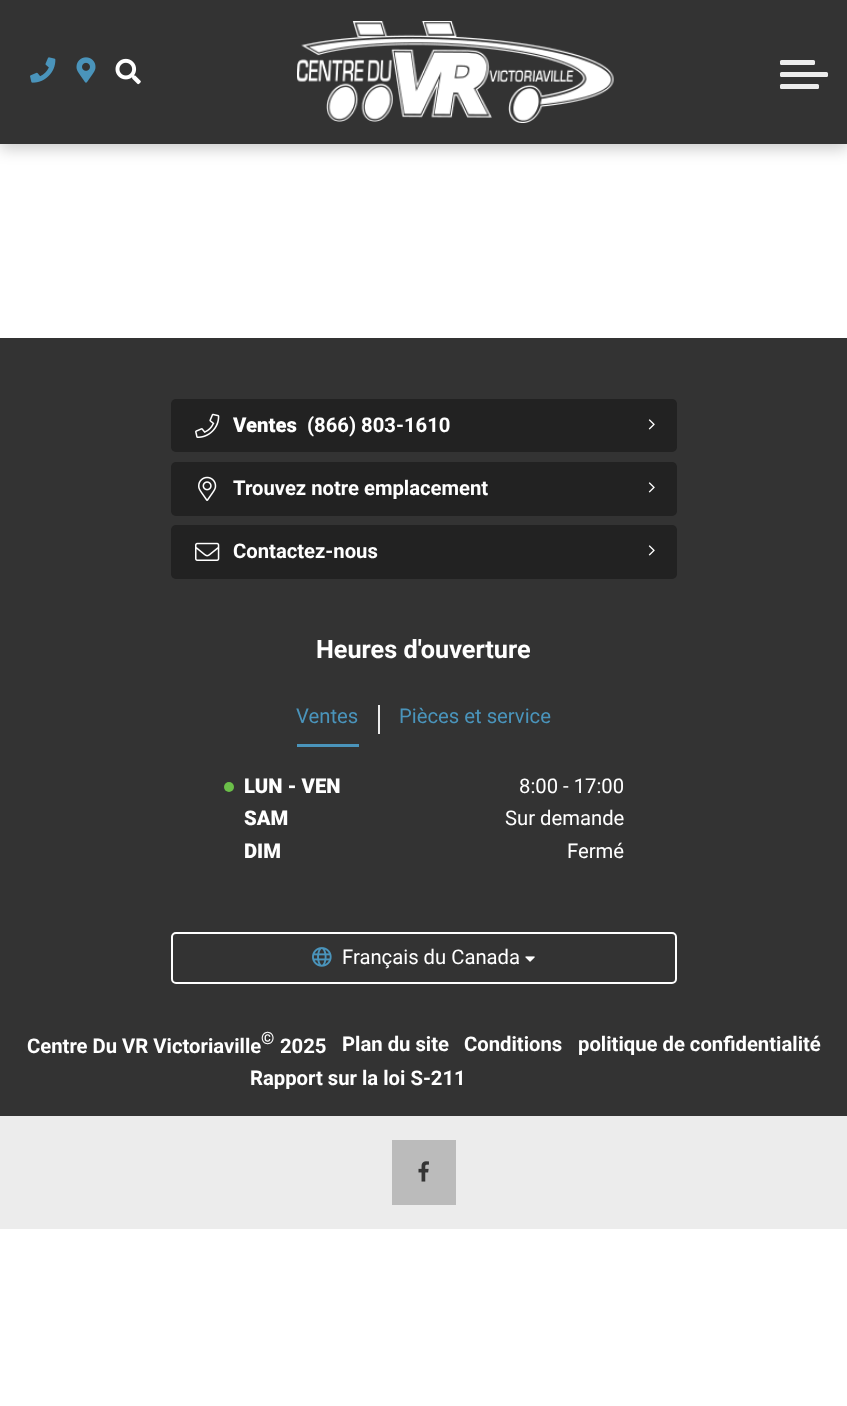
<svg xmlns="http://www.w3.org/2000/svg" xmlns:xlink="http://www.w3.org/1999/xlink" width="847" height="1406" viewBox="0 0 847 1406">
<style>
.cls-1{font:900 20.25px Roboto;fill:#ffffff}
.cls-2{font:bold 20.25px Roboto;fill:#ffffff}
.cls-3{font:bold 25.25px Roboto;fill:#ffffff}
.cls-4{font:20.25px Roboto;fill:#4a94bb}
.cls-5{font:20.25px Roboto;fill:#ffffff}
.cls-6{font:bold 17px Roboto;fill:#ffffff}
</style>
<rect width="100%" height="100%" fill="#ffffff"/>
<rect fill="#000000" fill-opacity="0.2" filter="blur(7.5px)" x="0" y="5" width="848" height="144"/>
<rect fill="#333333" x="0" y="0" width="847" height="144"/>
<image xlink:href="image0.png" x="30" y="57" width="26" height="26"/>
<image xlink:href="image1.png" x="76" y="57" width="20" height="26"/>
<image xlink:href="image2.png" x="115" y="58" width="26" height="27"/>
<image xlink:href="image3.png" x="297" y="21" width="317" height="102"/>
<rect fill="#ececec" x="780" y="72" width="48" height="5" rx="1.5"/>
<rect fill="#ececec" x="780" y="60" width="35" height="5" rx="1.5"/>
<rect fill="#ececec" x="780" y="84" width="39" height="5" rx="1.5"/>
<rect fill="#333333" x="0" y="338" width="847" height="778"/>
<rect fill="#222222" x="171" y="399" width="506" height="53" rx="5"/>
<image xlink:href="image4.png" x="195" y="413" width="25" height="25"/>
<image xlink:href="image5.png" x="648" y="419" width="7" height="11"/>
<rect fill="#222222" x="171" y="462" width="506" height="54" rx="5"/>
<image xlink:href="image6.png" x="198" y="476" width="19" height="25"/>
<image xlink:href="image5.png" x="648" y="482" width="7" height="11"/>
<rect fill="#222222" x="171" y="525" width="506" height="54" rx="5"/>
<image xlink:href="image7.png" x="195" y="542" width="25" height="19"/>
<image xlink:href="image5.png" x="648" y="545" width="7" height="11"/>
<rect fill="#4a94bb" x="297" y="744" width="62" height="3"/>
<rect fill="#ececec" x="378" y="705" width="2" height="29"/>
<circle fill="#6bbf49" cx="229" cy="787" r="5"/>
<rect fill="none" stroke="#ffffff" stroke-width="2" x="172" y="933" width="504" height="50" rx="4"/>
<image xlink:href="image8.png" x="312" y="947" width="20" height="20"/>
<image xlink:href="image9.png" x="525" y="956" width="10" height="6"/>
<rect fill="#ececec" x="0" y="1116" width="847" height="113"/>
<rect fill="#bbbbbb" x="392" y="1140" width="64" height="65"/>
<image xlink:href="image10.png" x="418" y="1161" width="11" height="21"/>
<text class="cls-1" x="233" y="432">Ventes</text>
<text class="cls-2" x="307" y="432">(866) 803-1610</text>
<text class="cls-2" x="233" y="495">Trouvez notre emplacement</text>
<text class="cls-2" x="233" y="558">Contactez-nous</text>
<text class="cls-3" x="316" y="658">Heures d'ouverture</text>
<text class="cls-4" x="296" y="723">Ventes</text>
<text class="cls-4" x="399" y="723">Pièces et service</text>
<text class="cls-1" x="244" y="793">LUN - VEN</text>
<text class="cls-5" x="519" y="793">8:00 - 17:00</text>
<text class="cls-1" x="244" y="825">SAM</text>
<text class="cls-5" x="505" y="825">Sur demande</text>
<text class="cls-1" x="244" y="858">DIM</text>
<text class="cls-5" x="567" y="858">Fermé</text>
<text class="cls-5" x="342" y="964">Français du Canada</text>
<text class="cls-2" x="27" y="1053">Centre Du VR Victoriaville</text>
<text class="cls-6" x="261" y="1044">©</text>
<text class="cls-2" x="280" y="1053">2025</text>
<text class="cls-2" x="342" y="1051">Plan du site</text>
<text class="cls-2" x="464" y="1051">Conditions</text>
<text class="cls-2" x="578" y="1051">politique de confidentialité</text>
<text class="cls-2" x="250" y="1085">Rapport sur la loi S-211</text>
</svg>
